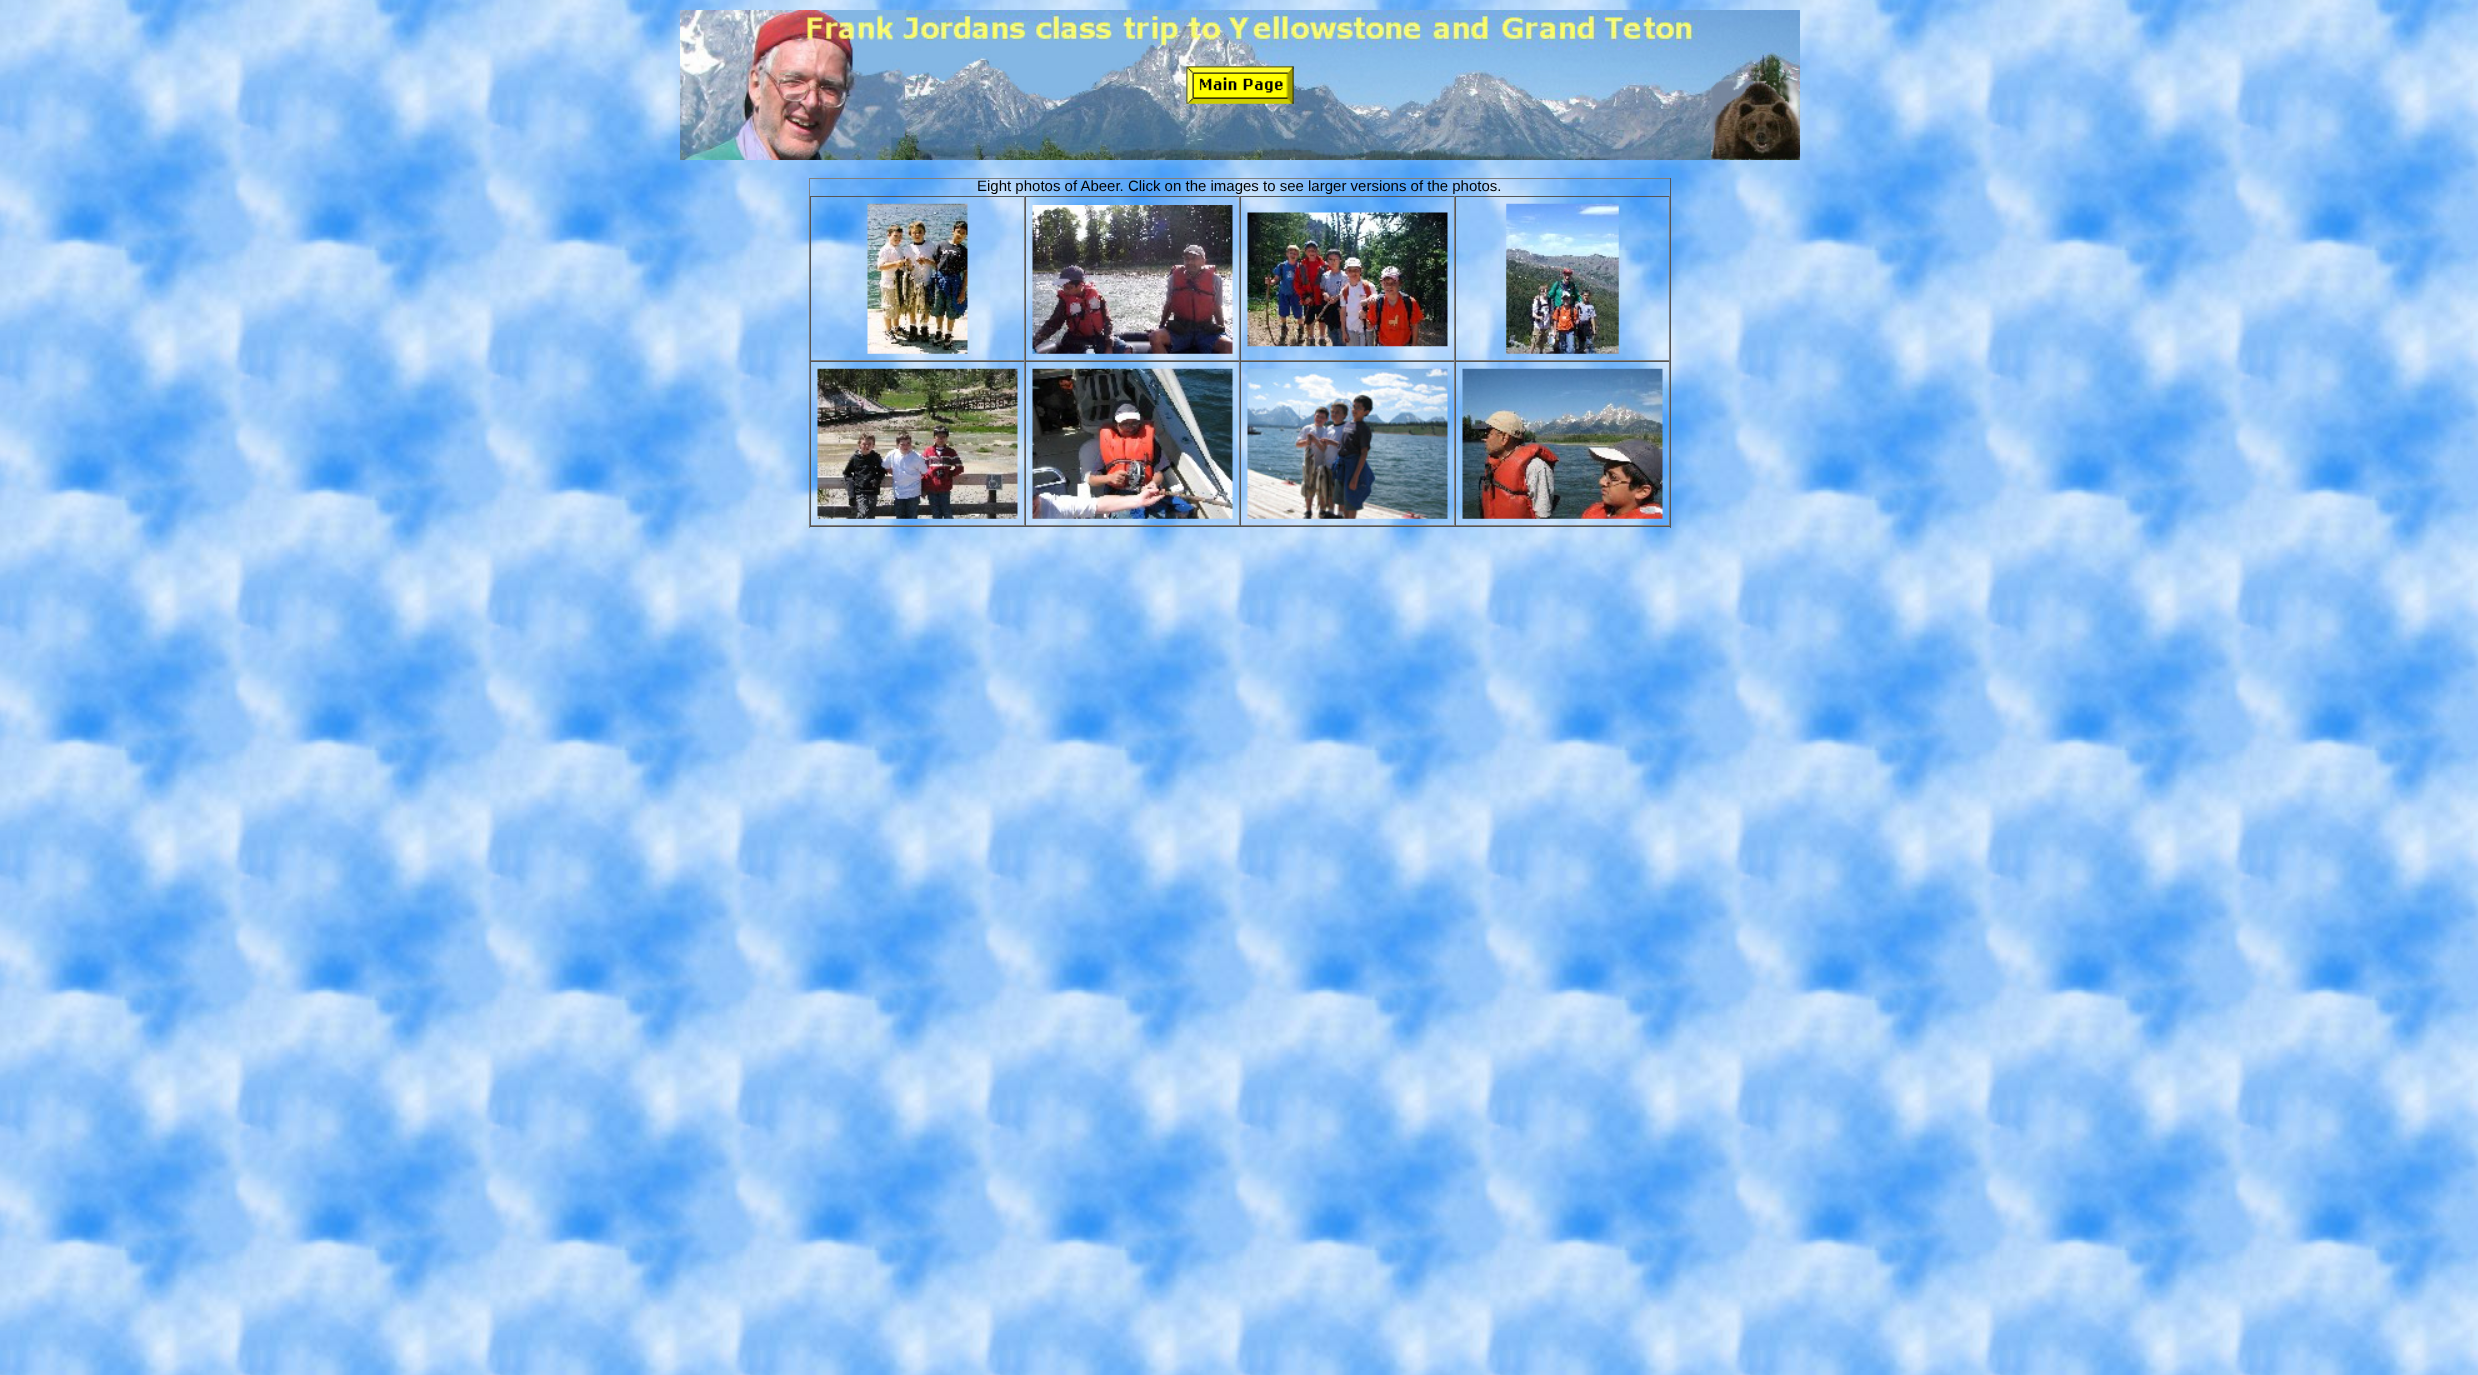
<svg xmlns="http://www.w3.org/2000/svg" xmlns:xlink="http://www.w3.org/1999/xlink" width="2478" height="1375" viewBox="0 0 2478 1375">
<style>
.cls-1{font:15px Liberation Sans;fill:#000000}
</style>
<rect width="100%" height="100%" fill="#ffffff"/>
<image xlink:href="image0.png" x="0" y="0" width="2478" height="1375"/>
<image xlink:href="image1.png" x="680" y="10" width="1120" height="150"/>
<image xlink:href="image2.png" x="1186" y="66" width="108" height="38"/>
<rect fill="#808080" x="809" y="178" width="862" height="1"/>
<rect fill="#555555" x="1670" y="178" width="1" height="350"/>
<rect fill="#555555" x="809" y="526" width="862" height="1"/>
<rect fill="#808080" x="809" y="178" width="1" height="350"/>
<rect fill="#555555" x="810" y="196" width="860" height="1"/>
<rect fill="#808080" x="1024" y="196" width="1" height="165"/>
<rect fill="#808080" x="810" y="360" width="215" height="1"/>
<rect fill="#555555" x="810" y="196" width="1" height="165"/>
<image xlink:href="image3.png" x="867" y="203" width="101" height="151"/>
<rect fill="#808080" x="1239" y="196" width="1" height="165"/>
<rect fill="#808080" x="1025" y="360" width="215" height="1"/>
<rect fill="#555555" x="1025" y="196" width="1" height="165"/>
<image xlink:href="image4.png" x="1032" y="205" width="201" height="149"/>
<rect fill="#808080" x="1454" y="196" width="1" height="165"/>
<rect fill="#808080" x="1240" y="360" width="215" height="1"/>
<rect fill="#555555" x="1240" y="196" width="1" height="165"/>
<image xlink:href="image5.png" x="1247" y="212" width="201" height="135"/>
<rect fill="#808080" x="1669" y="196" width="1" height="165"/>
<rect fill="#808080" x="1455" y="360" width="215" height="1"/>
<rect fill="#555555" x="1455" y="196" width="1" height="165"/>
<image xlink:href="image6.png" x="1506" y="203" width="113" height="151"/>
<rect fill="#555555" x="810" y="361" width="860" height="1"/>
<rect fill="#808080" x="1024" y="361" width="1" height="165"/>
<rect fill="#808080" x="810" y="525" width="215" height="1"/>
<rect fill="#555555" x="810" y="361" width="1" height="165"/>
<image xlink:href="image7.png" x="817" y="368" width="201" height="151"/>
<rect fill="#808080" x="1239" y="361" width="1" height="165"/>
<rect fill="#808080" x="1025" y="525" width="215" height="1"/>
<rect fill="#555555" x="1025" y="361" width="1" height="165"/>
<image xlink:href="image8.png" x="1032" y="368" width="201" height="151"/>
<rect fill="#808080" x="1454" y="361" width="1" height="165"/>
<rect fill="#808080" x="1240" y="525" width="215" height="1"/>
<rect fill="#555555" x="1240" y="361" width="1" height="165"/>
<image xlink:href="image9.png" x="1247" y="368" width="201" height="151"/>
<rect fill="#808080" x="1669" y="361" width="1" height="165"/>
<rect fill="#808080" x="1455" y="525" width="215" height="1"/>
<rect fill="#555555" x="1455" y="361" width="1" height="165"/>
<image xlink:href="image10.png" x="1462" y="368" width="201" height="151"/>
<text class="cls-1" x="977" y="191">Eight photos of Abeer. Click on the images to see larger versions of the photos.</text>
</svg>
